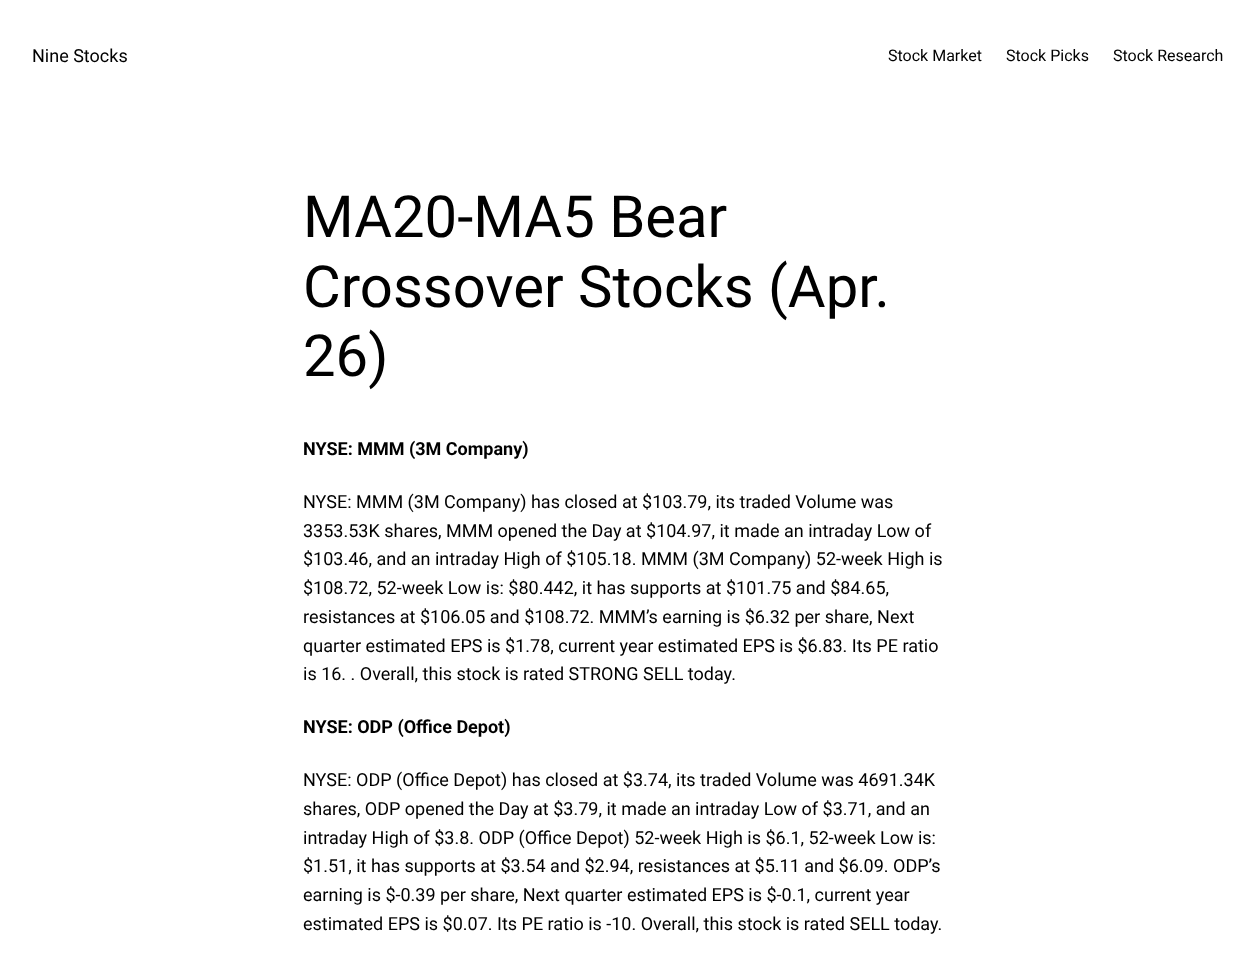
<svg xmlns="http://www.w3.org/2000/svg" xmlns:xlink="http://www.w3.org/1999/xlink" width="1255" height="980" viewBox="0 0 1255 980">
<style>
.cls-1{font:18px Roboto;fill:#000000}
.cls-2{font:16px Roboto;fill:#000000}
.cls-3{font:58px Roboto;fill:#000000}
.cls-4{font:bold 18px Roboto;fill:#000000}
</style>
<rect width="100%" height="100%" fill="#ffffff"/>
<text class="cls-1" x="32" y="62">Nine Stocks</text>
<text class="cls-2" x="888" y="61">Stock Market</text>
<text class="cls-2" x="1006" y="61">Stock Picks</text>
<text class="cls-2" x="1113" y="61">Stock Research</text>
<text class="cls-3"><tspan x="303" y="237">MA20-MA5 Bear</tspan><tspan x="303" y="307">Crossover Stocks (Apr.</tspan><tspan x="303" y="376">26)</tspan></text>
<text class="cls-4" x="303" y="455">NYSE: MMM (3M Company)</text>
<text class="cls-1"><tspan x="303" y="508">NYSE: MMM (3M Company) has closed at $103.79, its traded Volume was</tspan><tspan x="303" y="537">3353.53K shares, MMM opened the Day at $104.97, it made an intraday Low of</tspan><tspan x="303" y="565">$103.46, and an intraday High of $105.18. MMM (3M Company) 52-week High is</tspan><tspan x="303" y="594">$108.72, 52-week Low is: $80.442, it has supports at $101.75 and $84.65,</tspan><tspan x="303" y="623">resistances at $106.05 and $108.72. MMM’s earning is $6.32 per share, Next</tspan><tspan x="303" y="652">quarter estimated EPS is $1.78, current year estimated EPS is $6.83. Its PE ratio</tspan><tspan x="303" y="680">is 16. . Overall, this stock is rated STRONG SELL today.</tspan></text>
<text class="cls-4" x="303" y="733">NYSE: ODP (Office Depot)</text>
<text class="cls-1"><tspan x="303" y="786">NYSE: ODP (Office Depot) has closed at $3.74, its traded Volume was 4691.34K</tspan><tspan x="303" y="815">shares, ODP opened the Day at $3.79, it made an intraday Low of $3.71, and an</tspan><tspan x="303" y="844">intraday High of $3.8. ODP (Office Depot) 52-week High is $6.1, 52-week Low is:</tspan><tspan x="303" y="872">$1.51, it has supports at $3.54 and $2.94, resistances at $5.11 and $6.09. ODP’s</tspan><tspan x="303" y="901">earning is $-0.39 per share, Next quarter estimated EPS is $-0.1, current year</tspan><tspan x="303" y="930">estimated EPS is $0.07. Its PE ratio is -10. Overall, this stock is rated SELL today.</tspan></text>
</svg>
